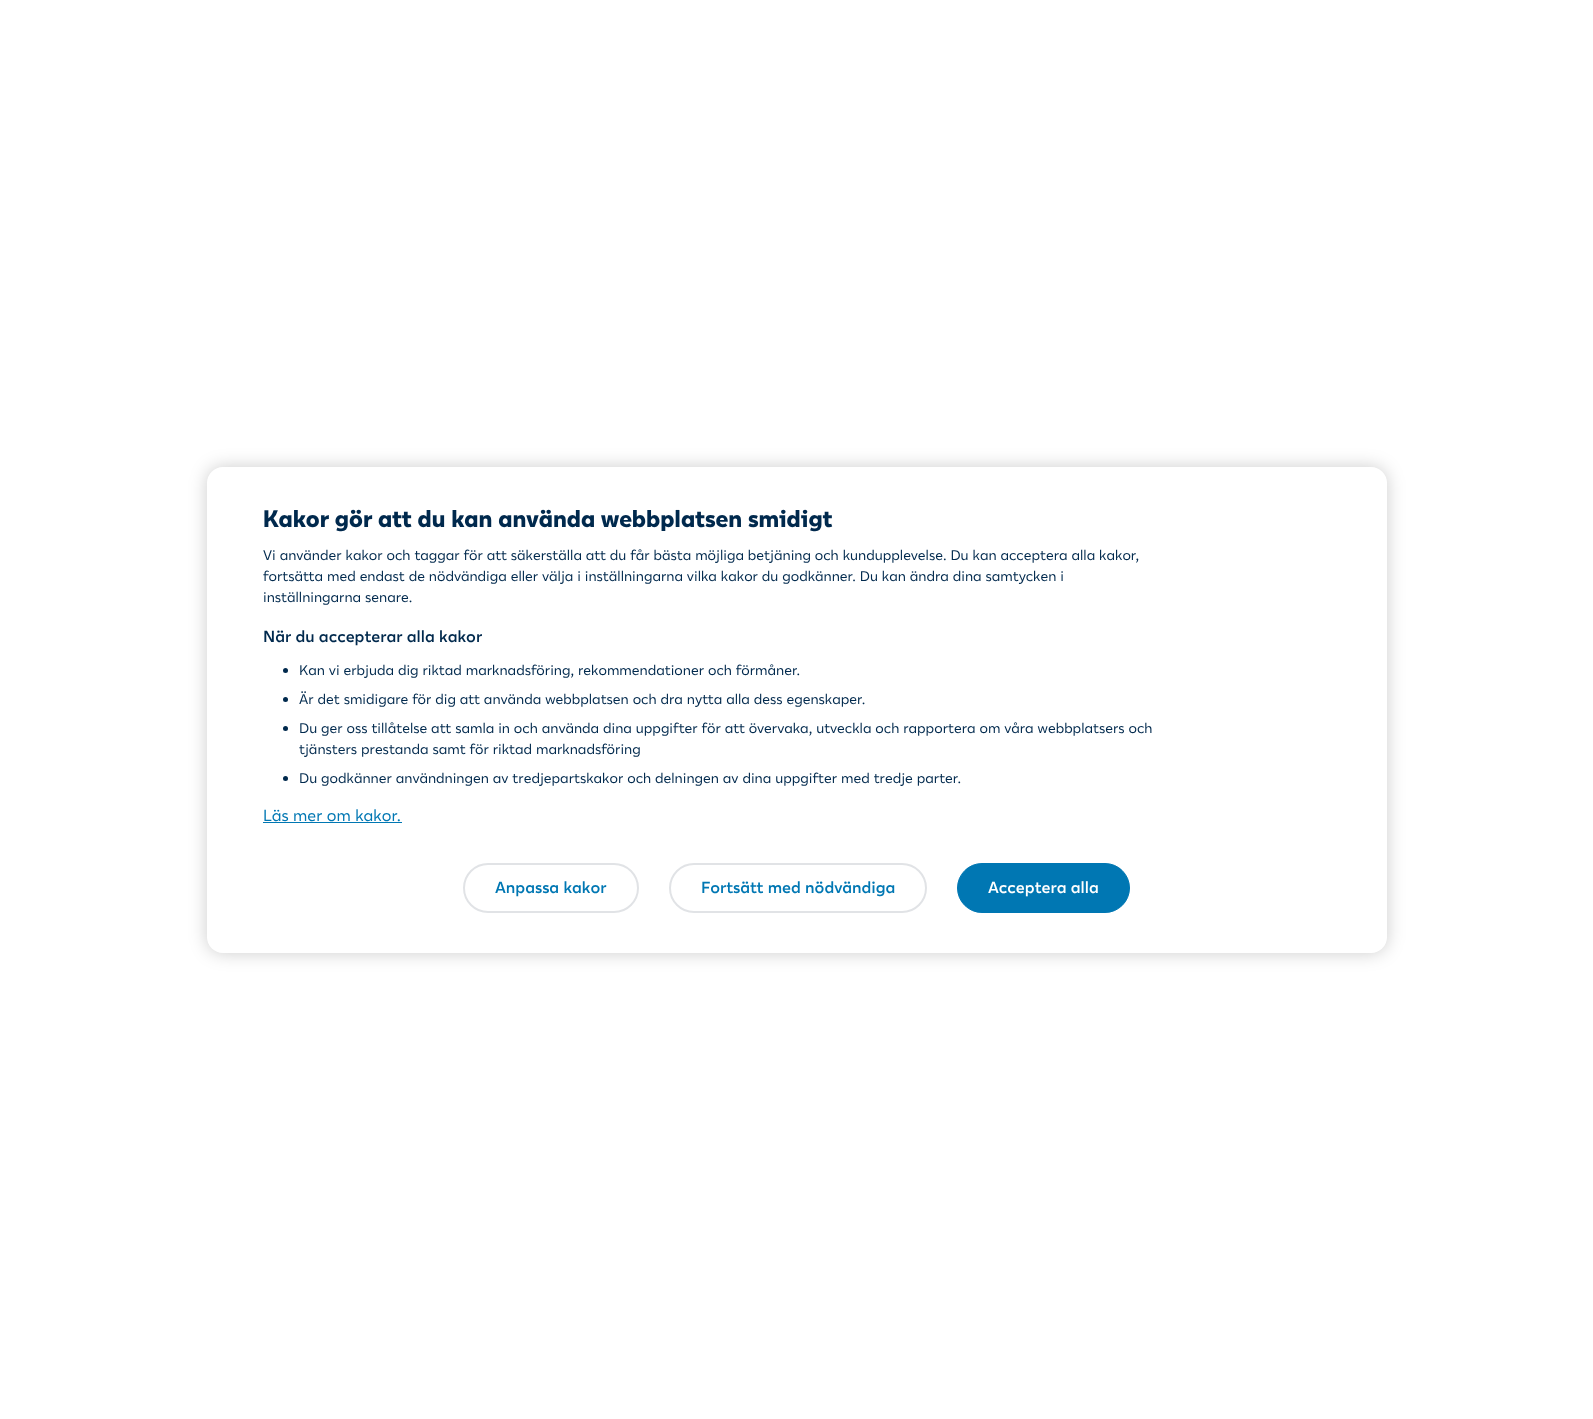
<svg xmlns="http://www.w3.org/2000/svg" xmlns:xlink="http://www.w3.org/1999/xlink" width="1593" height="1419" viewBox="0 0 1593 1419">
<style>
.cls-1{font:800 24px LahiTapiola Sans;fill:#00294d}
.cls-2{font:14px LahiTapiola Sans;fill:#00294d}
.cls-3{font:600 16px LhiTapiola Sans;fill:#00294d}
.cls-4{font:16px LahiTapiola Sans;fill:#0077b3}
.cls-5{font:600 16px LhiTapiola Sans;fill:#0077b3}
.cls-6{font:600 16px LhiTapiola Sans;fill:#ffffff}
</style>
<rect width="100%" height="100%" fill="#ffffff"/>
<rect fill="#000000" fill-opacity="0.2" filter="blur(9px)" x="207" y="467" width="1180" height="486" rx="16"/>
<rect fill="#ffffff" x="207" y="467" width="1180" height="486" rx="16"/>
<circle fill="#00294d" cx="285.5" cy="670.5" r="2.5"/>
<circle fill="#00294d" cx="285.5" cy="699.5" r="2.5"/>
<circle fill="#00294d" cx="285.5" cy="728.5" r="2.5"/>
<circle fill="#00294d" cx="285.5" cy="778.5" r="2.5"/>
<rect fill="#0077b3" x="263" y="822" width="139" height="1"/>
<rect fill="none" stroke="#e1e3e6" stroke-width="2" x="464" y="864" width="174" height="48" rx="24"/>
<rect fill="none" stroke="#e1e3e6" stroke-width="2" x="670" y="864" width="256" height="48" rx="24"/>
<rect fill="#0077b3" stroke="#0077b3" x="957.5" y="863.5" width="172" height="49" rx="24.5"/>
<text class="cls-1" x="263" y="527">Kakor gör att du kan använda webbplatsen smidigt</text>
<text class="cls-2"><tspan x="263" y="560">Vi använder kakor och taggar för att säkerställa att du får bästa möjliga betjäning och kundupplevelse. Du kan acceptera alla kakor,</tspan><tspan x="263" y="581">fortsätta med endast de nödvändiga eller välja i inställningarna vilka kakor du godkänner. Du kan ändra dina samtycken i</tspan><tspan x="263" y="602">inställningarna senare.</tspan></text>
<text class="cls-3" x="263" y="642">När du accepterar alla kakor</text>
<text class="cls-2" x="299" y="675">Kan vi erbjuda dig riktad marknadsföring, rekommendationer och förmåner.</text>
<text class="cls-2" x="299" y="704">Är det smidigare för dig att använda webbplatsen och dra nytta alla dess egenskaper.</text>
<text class="cls-2"><tspan x="299" y="733">Du ger oss tillåtelse att samla in och använda dina uppgifter för att övervaka, utveckla och rapportera om våra webbplatsers och</tspan><tspan x="299" y="754">tjänsters prestanda samt för riktad marknadsföring</tspan></text>
<text class="cls-2" x="299" y="783">Du godkänner användningen av tredjepartskakor och delningen av dina uppgifter med tredje parter.</text>
<text class="cls-4" x="263" y="821">Läs mer om kakor.</text>
<text class="cls-5" x="495" y="893">Anpassa kakor</text>
<text class="cls-5" x="701" y="893">Fortsätt med nödvändiga</text>
<text class="cls-6" x="988" y="893">Acceptera alla</text>
</svg>
